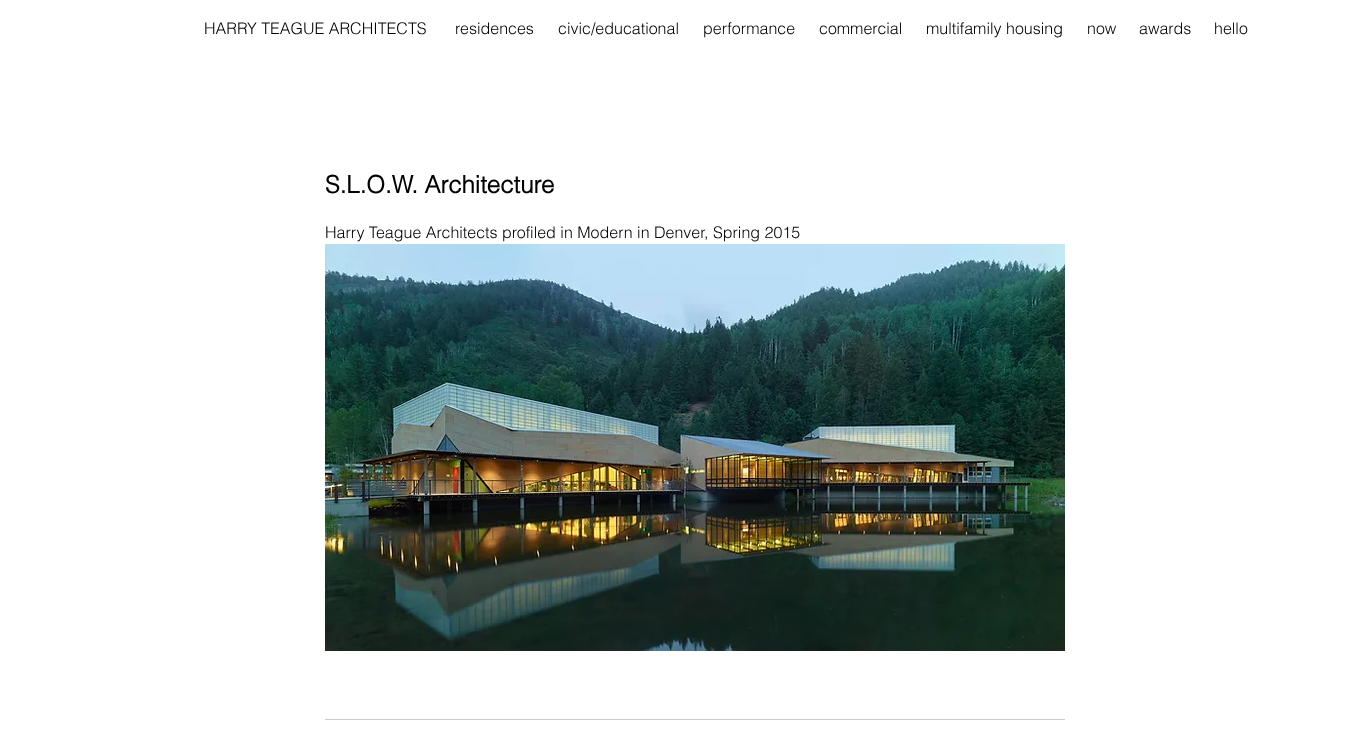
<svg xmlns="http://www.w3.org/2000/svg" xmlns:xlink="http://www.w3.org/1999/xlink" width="1360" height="745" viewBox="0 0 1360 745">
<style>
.cls-1{font:300 16px helvetica;fill:#000000}
.cls-2{font:bold 24px helvetica;fill:#000000}
</style>
<rect width="100%" height="100%" fill="#ffffff"/>
<image xlink:href="image0.png" x="325" y="244" width="740" height="407"/>
<rect fill="#cccccc" x="325" y="719" width="740" height="1"/>
<text class="cls-1" x="204" y="34">HARRY TEAGUE ARCHITECTS</text>
<text class="cls-1" x="455" y="34">residences</text>
<text class="cls-1" x="558" y="34">civic/educational</text>
<text class="cls-1" x="703" y="34">performance</text>
<text class="cls-1" x="819" y="34">commercial</text>
<text class="cls-1" x="926" y="34">multifamily housing</text>
<text class="cls-1" x="1087" y="34">now</text>
<text class="cls-1" x="1139" y="34">awards</text>
<text class="cls-1" x="1214" y="34">hello</text>
<text class="cls-2" x="325" y="193">S.L.O.W. Architecture</text>
<text class="cls-1" x="325" y="238">Harry Teague Architects profiled in Modern in Denver, Spring 2015</text>
</svg>
